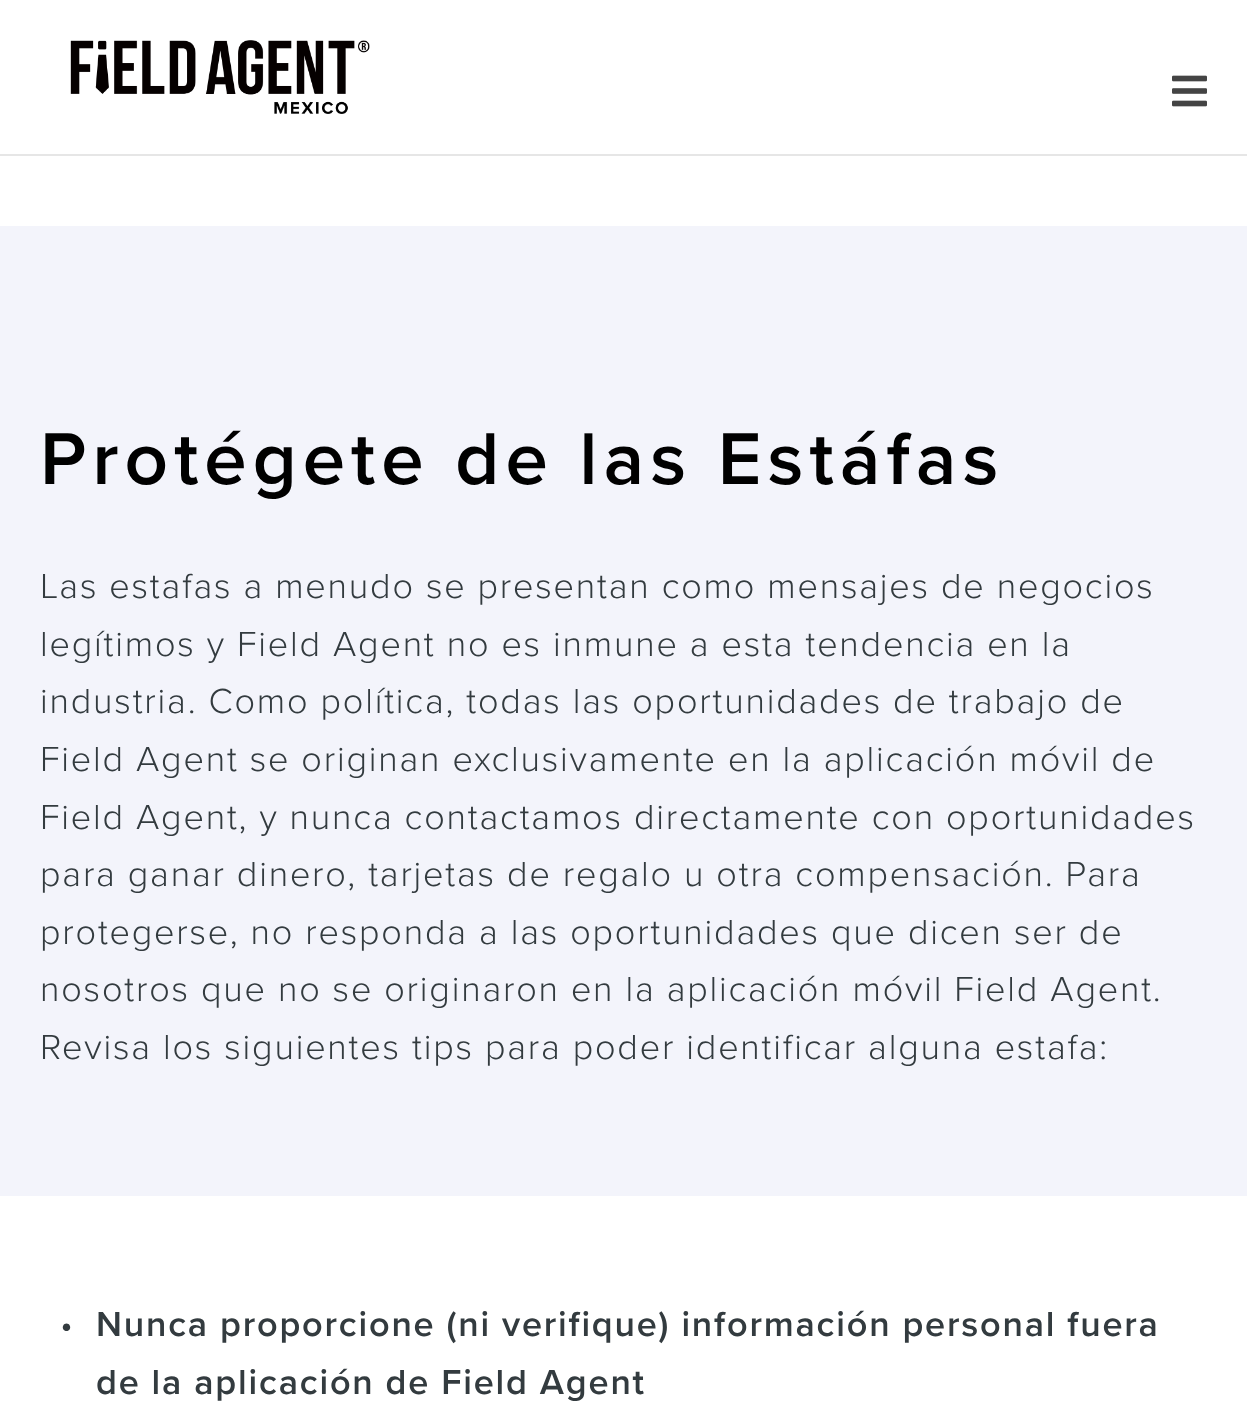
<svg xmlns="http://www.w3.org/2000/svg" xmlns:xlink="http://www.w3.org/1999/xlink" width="1247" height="1414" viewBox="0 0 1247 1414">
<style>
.cls-1{font:600 76px Proxima Nova;letter-spacing:6px;fill:#000000}
.cls-2{font:300 36px Proxima Nova;letter-spacing:1.8px;fill:#333b3f}
.cls-3{font:600 36px Proxima Nova;letter-spacing:1.8px;fill:#333b3f}
</style>
<rect width="100%" height="100%" fill="#ffffff"/>
<rect fill="#e6e6e6" x="0" y="154" width="1247" height="2"/>
<image xlink:href="image0.png" x="70" y="40" width="300" height="74"/>
<image xlink:href="image1.png" x="1172" y="75" width="35" height="32"/>
<rect fill="#f3f4fb" x="0" y="226" width="1247" height="970"/>
<text class="cls-1" x="40" y="484">Protégete de las Estáfas</text>
<text class="cls-2"><tspan x="40" y="598">Las estafas a menudo se presentan como mensajes de negocios</tspan><tspan x="40" y="656">legítimos y Field Agent no es inmune a esta tendencia en la</tspan><tspan x="40" y="713">industria. Como política, todas las oportunidades de trabajo de</tspan><tspan x="40" y="771">Field Agent se originan exclusivamente en la aplicación móvil de</tspan><tspan x="40" y="829">Field Agent, y nunca contactamos directamente con oportunidades</tspan><tspan x="40" y="886">para ganar dinero, tarjetas de regalo u otra compensación. Para</tspan><tspan x="40" y="944">protegerse, no responda a las oportunidades que dicen ser de</tspan><tspan x="40" y="1001">nosotros que no se originaron en la aplicación móvil Field Agent.</tspan><tspan x="40" y="1059">Revisa los siguientes tips para poder identificar alguna estafa:</tspan></text>
<text class="cls-2" x="60" y="1336">•</text>
<text class="cls-3"><tspan x="96" y="1336">Nunca proporcione (ni verifique) información personal fuera</tspan><tspan x="96" y="1394">de la aplicación de Field Agent</tspan></text>
</svg>
